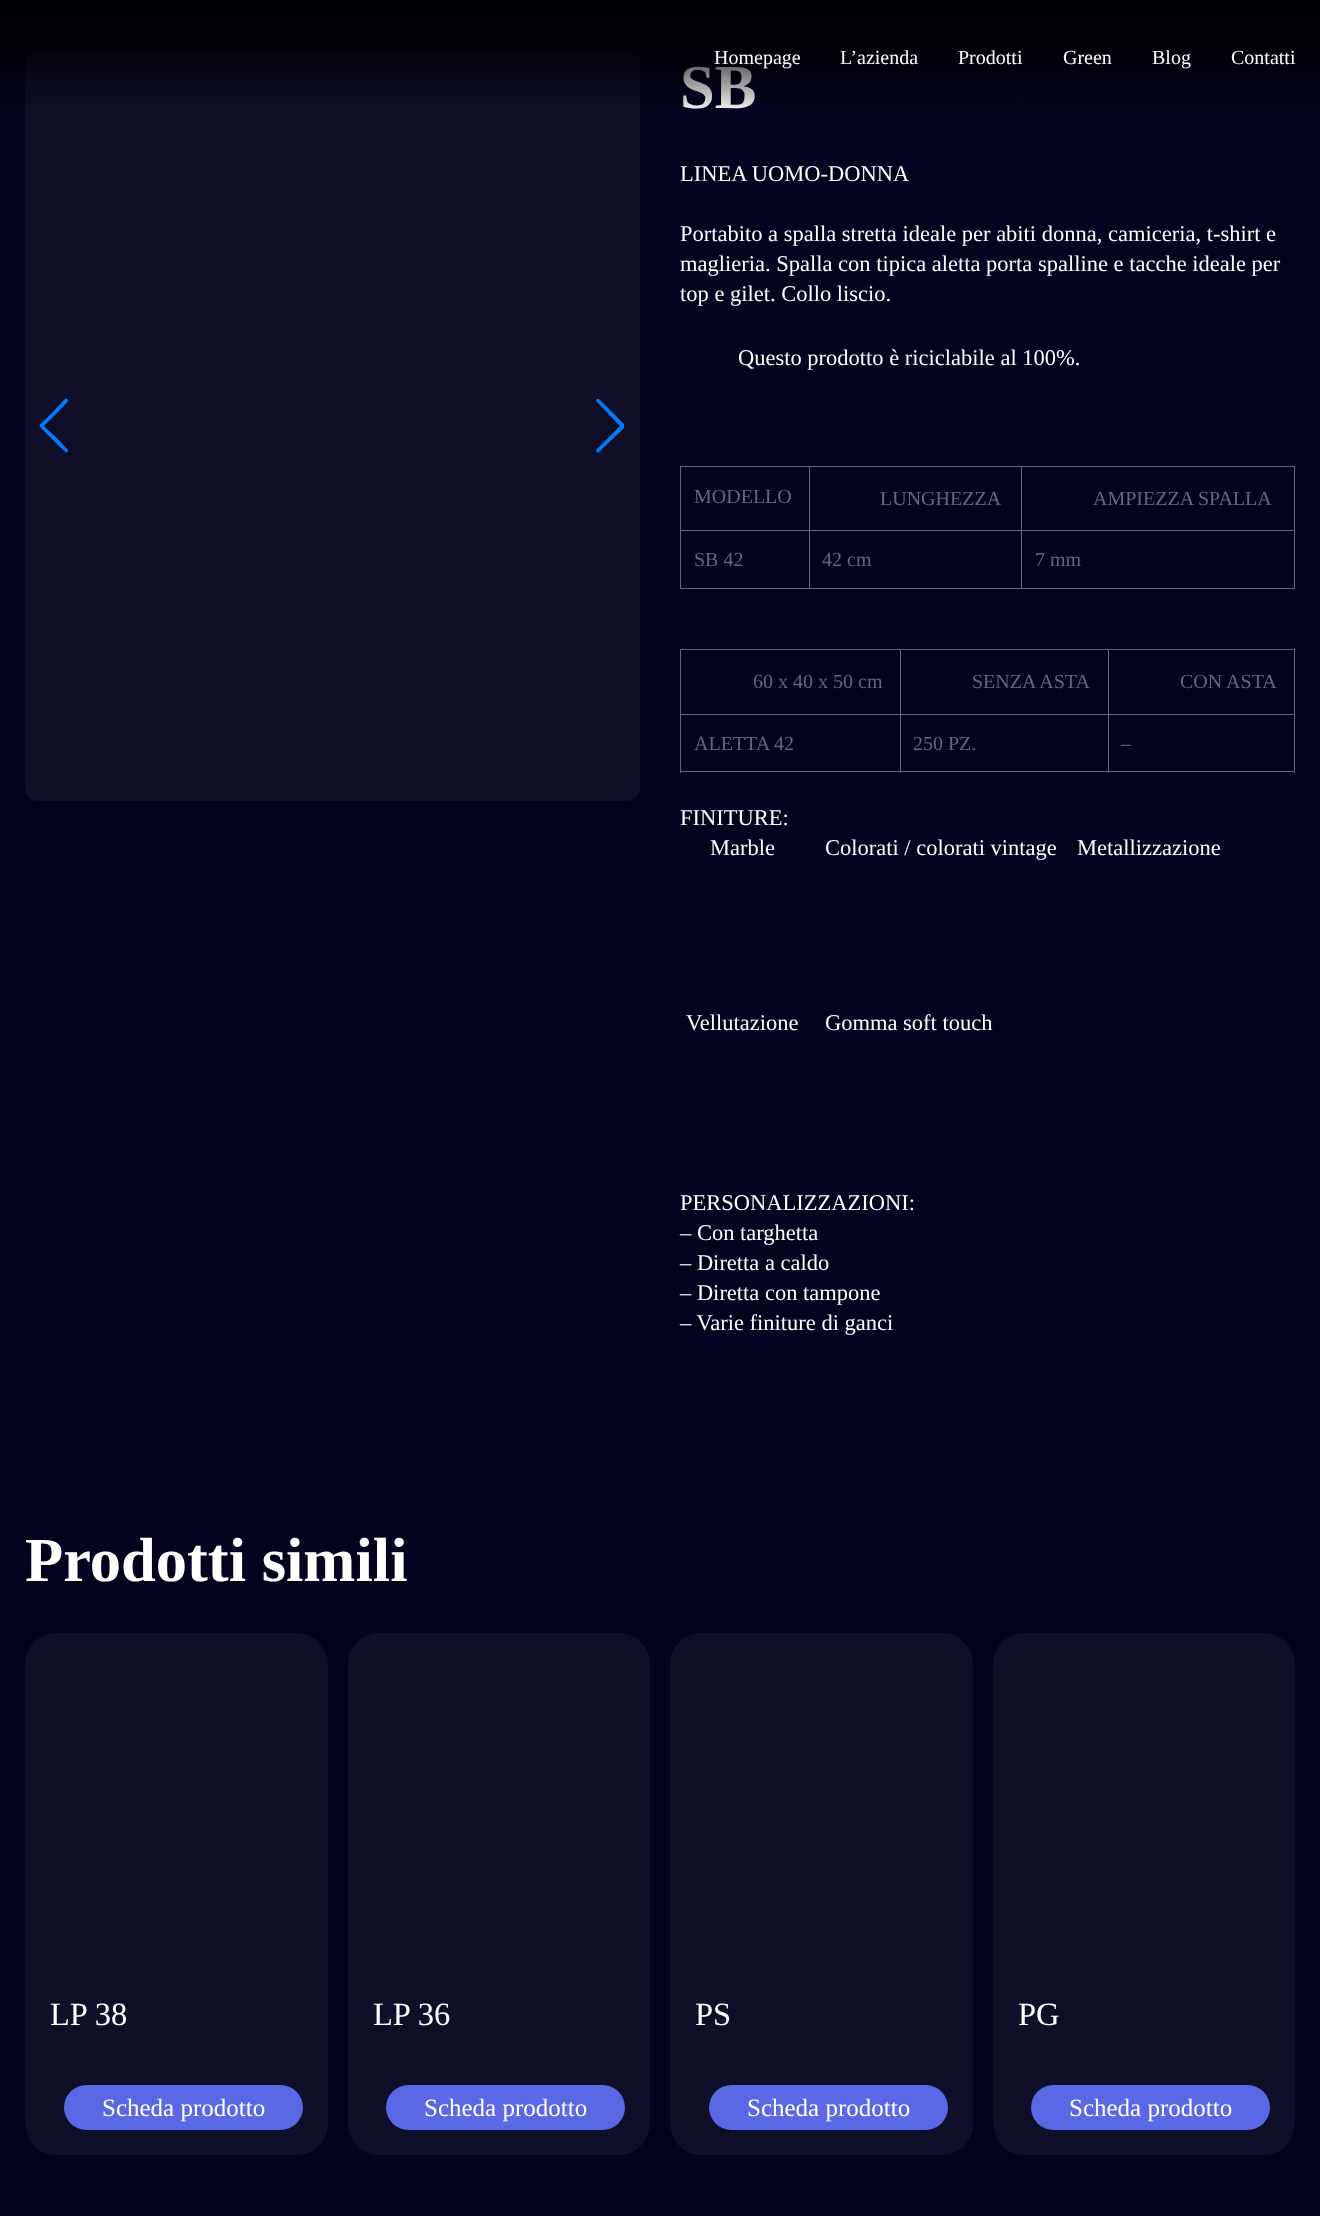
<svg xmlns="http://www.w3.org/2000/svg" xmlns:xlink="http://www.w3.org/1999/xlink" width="1320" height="2216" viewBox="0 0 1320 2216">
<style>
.cls-1{font:bold 62.5px Liberation Serif;fill:#ffffff}
.cls-2{font:20px Liberation Serif;fill:#ffffff}
.cls-3{font:22.5px Liberation Serif;fill:#ffffff}
.cls-4{font:20px Liberation Serif;fill:#666682}
.cls-5{font:32.5px Liberation Serif;fill:#ffffff}
.cls-6{font:25px Liberation Serif;fill:#ffffff}
</style>
<defs>
<linearGradient id="g1" gradientUnits="userSpaceOnUse" x1="660" y1="0" x2="660" y2="115"><stop offset="0" stop-color="#000000" stop-opacity="0.9"/><stop offset="0.5" stop-color="#000000" stop-opacity="0.7"/><stop offset="1" stop-color="#000000" stop-opacity="0"/></linearGradient>
</defs>
<rect width="100%" height="100%" fill="#03031f"/>
<rect fill="#0f0f2a" x="25" y="51" width="615" height="750" rx="13"/>
<path fill="#007aff" d="M65 399C66 398 68 399 68 401C68 402 47 423 44 426C47 429 69 449 68 451C67 455 64 450 61 448L45 432C38 425 38 426 45 420Z"/>
<path fill="#007aff" d="M597 452C596 451 596 450 597 449L620 426L597 402C596 401 596 400 597 399C598 399 599 399 599 399L624 424V426V428L599 452C599 453 598 453 597 452Z"/>
<rect fill="#666682" x="1021" y="466" width="274" height="1"/>
<rect fill="#666682" x="1021" y="530" width="274" height="1"/>
<rect fill="#666682" x="1294" y="530" width="1" height="59"/>
<rect fill="#666682" x="1021" y="588" width="274" height="1"/>
<rect fill="#666682" x="1021" y="530" width="1" height="59"/>
<rect fill="#666682" x="809" y="530" width="214" height="1"/>
<rect fill="#666682" x="1021" y="466" width="1" height="65"/>
<rect fill="#666682" x="809" y="466" width="214" height="1"/>
<rect fill="#666682" x="809" y="588" width="214" height="1"/>
<rect fill="#666682" x="809" y="530" width="1" height="59"/>
<rect fill="#666682" x="680" y="530" width="130" height="1"/>
<rect fill="#666682" x="809" y="466" width="1" height="65"/>
<rect fill="#666682" x="680" y="466" width="130" height="1"/>
<rect fill="#666682" x="680" y="588" width="130" height="1"/>
<rect fill="#666682" x="680" y="530" width="1" height="59"/>
<rect fill="#666682" x="680" y="466" width="1" height="65"/>
<rect fill="#666682" x="1294" y="466" width="1" height="65"/>
<rect fill="#666682" x="1108" y="649" width="187" height="1"/>
<rect fill="#666682" x="1108" y="714" width="187" height="1"/>
<rect fill="#666682" x="1294" y="714" width="1" height="59"/>
<rect fill="#666682" x="1108" y="771" width="187" height="1"/>
<rect fill="#666682" x="1108" y="714" width="1" height="59"/>
<rect fill="#666682" x="900" y="714" width="209" height="1"/>
<rect fill="#666682" x="1108" y="649" width="1" height="66"/>
<rect fill="#666682" x="900" y="649" width="209" height="1"/>
<rect fill="#666682" x="900" y="771" width="209" height="1"/>
<rect fill="#666682" x="900" y="714" width="1" height="59"/>
<rect fill="#666682" x="680" y="714" width="221" height="1"/>
<rect fill="#666682" x="900" y="649" width="1" height="66"/>
<rect fill="#666682" x="680" y="649" width="221" height="1"/>
<rect fill="#666682" x="680" y="771" width="221" height="1"/>
<rect fill="#666682" x="680" y="714" width="1" height="59"/>
<rect fill="#666682" x="680" y="649" width="1" height="66"/>
<rect fill="#666682" x="1294" y="649" width="1" height="66"/>
<rect fill="#0f0f2a" x="25" y="1633" width="303" height="522" rx="31"/>
<rect fill="#5a68e5" x="64" y="2085" width="239" height="45" rx="22.5"/>
<rect fill="#0f0f2a" x="348" y="1633" width="302" height="522" rx="31"/>
<rect fill="#5a68e5" x="386" y="2085" width="239" height="45" rx="22.5"/>
<rect fill="#0f0f2a" x="670" y="1633" width="303" height="522" rx="31"/>
<rect fill="#5a68e5" x="709" y="2085" width="239" height="45" rx="22.5"/>
<rect fill="#0f0f2a" x="993" y="1633" width="302" height="522" rx="31"/>
<rect fill="#5a68e5" x="1031" y="2085" width="239" height="45" rx="22.5"/>
<text class="cls-1" x="680" y="108">SB</text>
<rect fill="url(#g1)" x="0" y="0" width="1320" height="110"/>
<text class="cls-2" x="1231" y="64">Contatti</text>
<text class="cls-2" x="1152" y="64">Blog</text>
<text class="cls-2" x="1063" y="64">Green</text>
<text class="cls-2" x="958" y="64">Prodotti</text>
<text class="cls-2" x="840" y="64">L’azienda</text>
<text class="cls-2" x="714" y="64">Homepage</text>
<text class="cls-3" x="680" y="181">LINEA UOMO-DONNA</text>
<text class="cls-3"><tspan x="680" y="241">Portabito a spalla stretta ideale per abiti donna, camiceria, t-shirt e</tspan><tspan x="680" y="271">maglieria. Spalla con tipica aletta porta spalline e tacche ideale per</tspan><tspan x="680" y="301">top e gilet. Collo liscio.</tspan></text>
<text class="cls-3" x="738" y="365">Questo prodotto è riciclabile al 100%.</text>
<text class="cls-4" x="694" y="503">MODELLO</text>
<text class="cls-4" x="880" y="505">LUNGHEZZA</text>
<text class="cls-4" x="1093" y="505">AMPIEZZA SPALLA</text>
<text class="cls-4" x="694" y="566">SB 42</text>
<text class="cls-4" x="822" y="566">42 cm</text>
<text class="cls-4" x="1035" y="566">7 mm</text>
<text class="cls-4" x="753" y="688">60 x 40 x 50 cm</text>
<text class="cls-4" x="972" y="688">SENZA ASTA</text>
<text class="cls-4" x="1180" y="688">CON ASTA</text>
<text class="cls-4" x="694" y="750">ALETTA 42</text>
<text class="cls-4" x="913" y="750">250 PZ.</text>
<text class="cls-4" x="1121" y="750">–</text>
<text class="cls-3" x="680" y="825">FINITURE:</text>
<text class="cls-3" x="710" y="855">Marble</text>
<text class="cls-3" x="825" y="855">Colorati / colorati vintage</text>
<text class="cls-3" x="1077" y="855">Metallizzazione</text>
<text class="cls-3" x="686" y="1030">Vellutazione</text>
<text class="cls-3" x="825" y="1030">Gomma soft touch</text>
<text class="cls-3"><tspan x="680" y="1210">PERSONALIZZAZIONI:</tspan><tspan x="680" y="1240">– Con targhetta</tspan><tspan x="680" y="1270">– Diretta a caldo</tspan><tspan x="680" y="1300">– Diretta con tampone</tspan><tspan x="680" y="1330">– Varie finiture di ganci</tspan></text>
<text class="cls-1" x="25" y="1581">Prodotti simili</text>
<text class="cls-5" x="50" y="2025">LP 38</text>
<text class="cls-6" x="102" y="2116">Scheda prodotto</text>
<text class="cls-5" x="373" y="2025">LP 36</text>
<text class="cls-6" x="424" y="2116">Scheda prodotto</text>
<text class="cls-5" x="695" y="2025">PS</text>
<text class="cls-6" x="747" y="2116">Scheda prodotto</text>
<text class="cls-5" x="1018" y="2025">PG</text>
<text class="cls-6" x="1069" y="2116">Scheda prodotto</text>
</svg>
